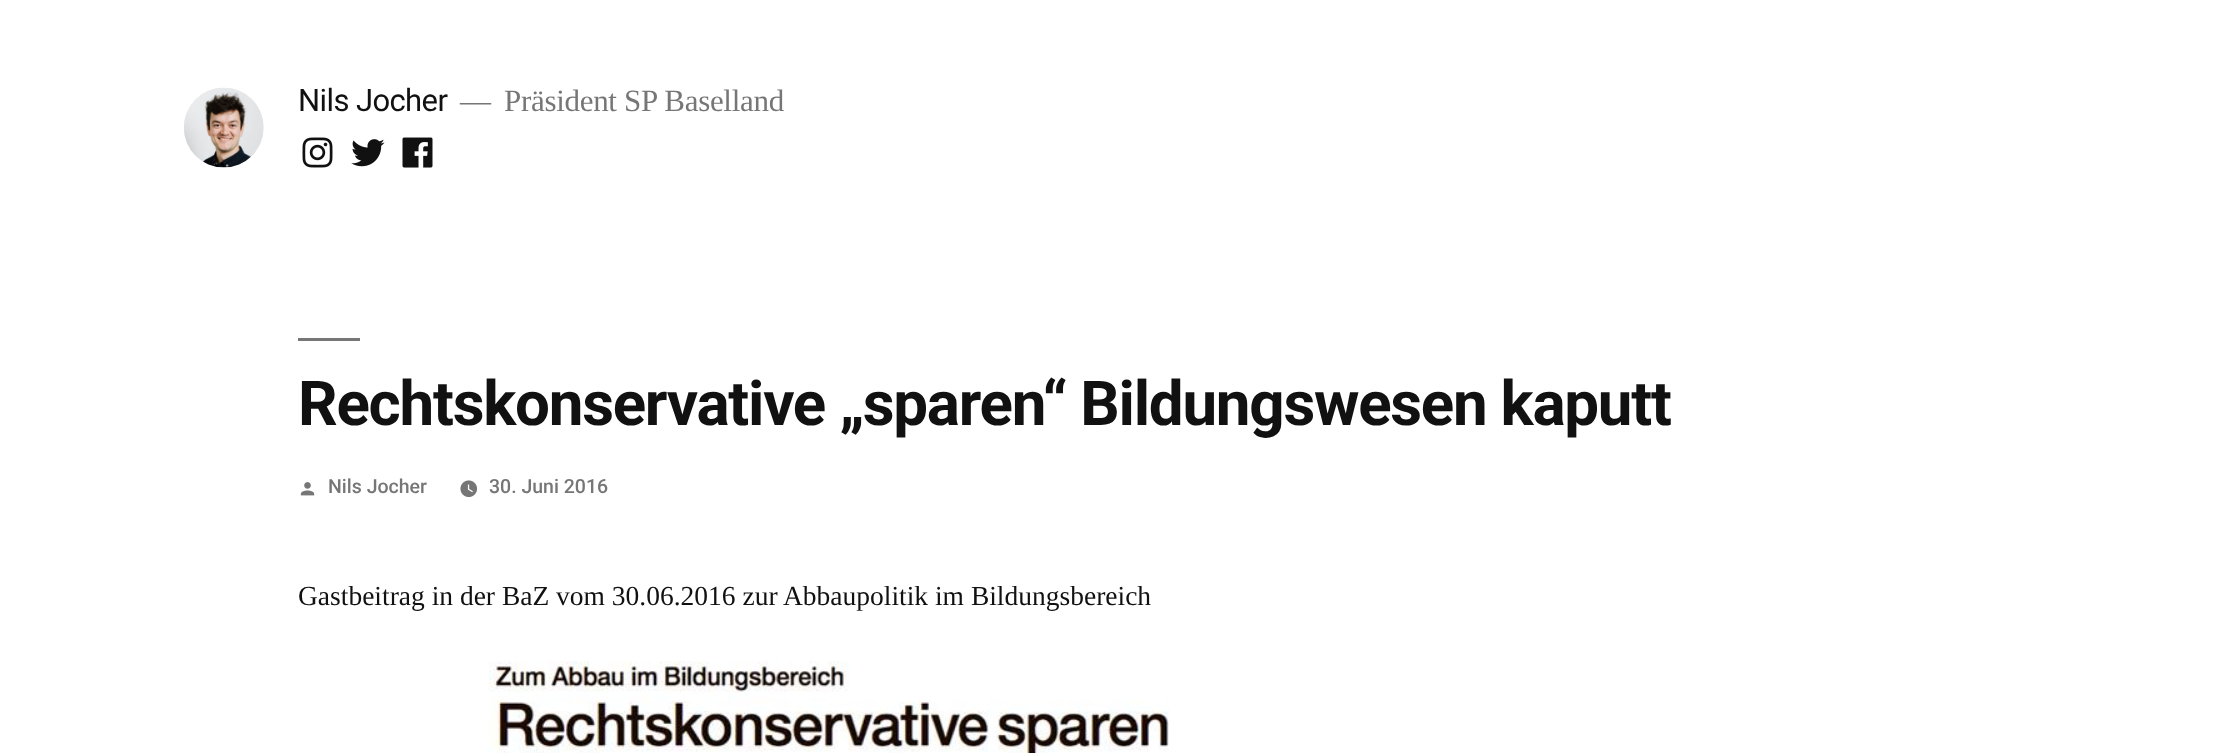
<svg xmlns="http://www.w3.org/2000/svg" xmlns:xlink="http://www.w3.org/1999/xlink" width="2229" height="753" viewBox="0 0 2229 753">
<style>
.cls-1{font:31px Roboto;letter-spacing:-0.6px;fill:#111111}
.cls-2{font:31px Liberation Serif;letter-spacing:-0.3px;fill:#767676}
.cls-3{font:bold 61.9px Roboto;letter-spacing:-1.25px;fill:#111111}
.cls-4{font:500 19.5px Roboto;fill:#767676}
.cls-5{font:27.5px Liberation Serif;fill:#111111}
</style>
<rect width="100%" height="100%" fill="#ffffff"/>
<image xlink:href="image0.png" x="184" y="87" width="80" height="81"/>
<image xlink:href="image1.png" x="302" y="137" width="31" height="31"/>
<image xlink:href="image2.png" x="351" y="139" width="34" height="28"/>
<image xlink:href="image3.png" x="402" y="137" width="31" height="31"/>
<rect fill="#767676" x="298" y="338" width="62" height="3"/>
<image xlink:href="image4.png" x="300" y="482" width="15" height="14"/>
<image xlink:href="image5.png" x="460" y="480" width="18" height="18"/>
<image xlink:href="image6.png" x="488" y="661" width="681" height="92"/>
<text class="cls-1" x="298" y="111">Nils Jocher</text>
<text class="cls-2" x="460" y="111">—</text>
<text class="cls-2" x="504" y="111">Präsident SP Baselland</text>
<text class="cls-3" x="298" y="425">Rechtskonservative „sparen“ Bildungswesen kaputt</text>
<text class="cls-4" x="328" y="493">Nils Jocher</text>
<text class="cls-4" x="489" y="493">30. Juni 2016</text>
<text class="cls-5" x="298" y="605">Gastbeitrag in der BaZ vom 30.06.2016 zur Abbaupolitik im Bildungsbereich</text>
</svg>
